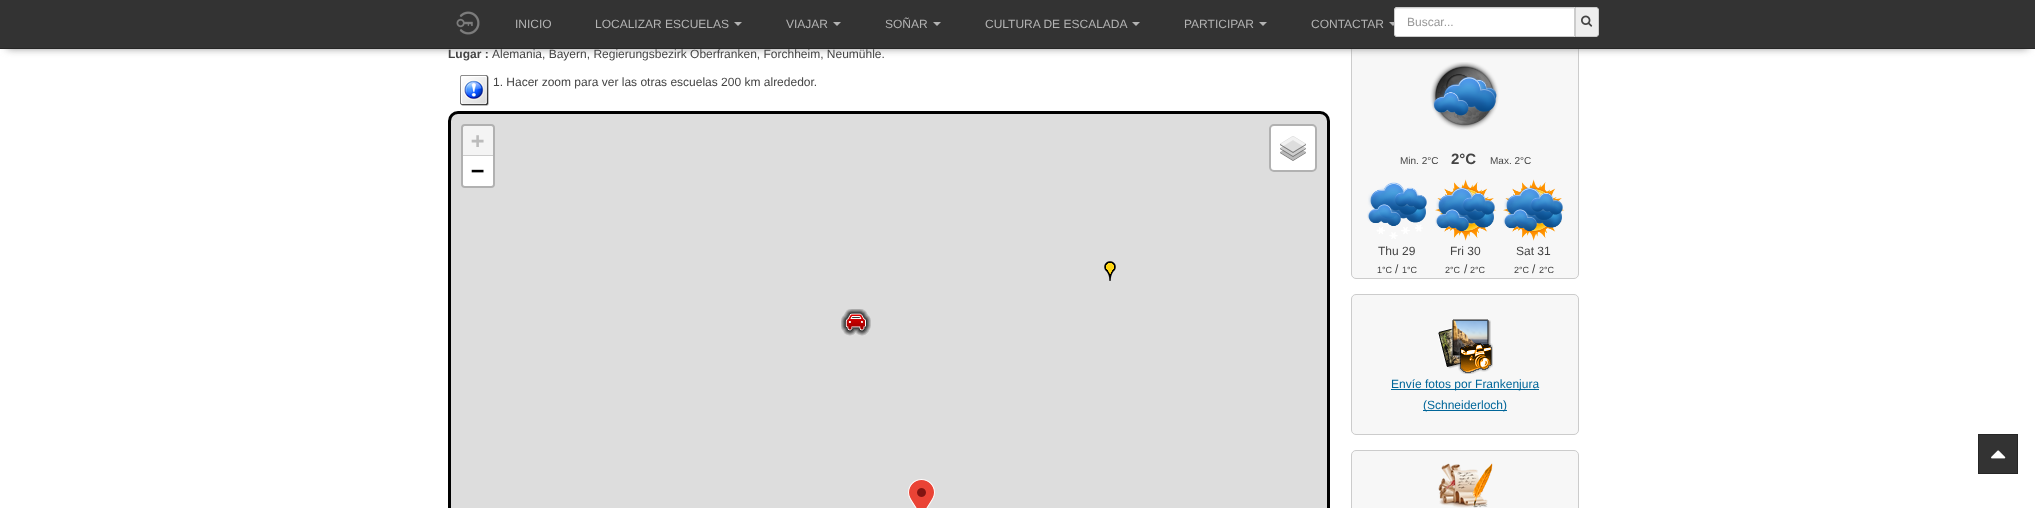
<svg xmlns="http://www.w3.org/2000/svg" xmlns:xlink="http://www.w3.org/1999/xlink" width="2035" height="508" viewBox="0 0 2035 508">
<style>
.cls-1{font:12px Liberation Sans;fill:#b3b3b3}
.cls-2{font:12px Liberation Sans;fill:#999999}
.cls-3{font:bold 12px Liberation Sans;fill:#444444}
.cls-4{font:12px Liberation Sans;fill:#444444}
.cls-5{font:bold 22px DejaVu Sans Mono;fill:#bbbbbb}
.cls-6{font:bold 22px DejaVu Sans Mono;fill:#000000}
.cls-7{font:10px Liberation Sans;fill:#444444}
.cls-8{font:bold 15px Liberation Sans;fill:#444444}
.cls-9{font:9px Liberation Sans;fill:#444444}
.cls-10{font:12px Liberation Sans;fill:#006699}
</style>
<rect width="100%" height="100%" fill="#ffffff"/>
<rect fill="#f7f7f7" stroke="#cccccc" x="1351.5" y="28.5" width="227" height="250" rx="4.5"/>
<rect fill="#808080" filter="blur(4px)" x="7" y="13" width="2021" height="35"/>
<rect fill="#333333" x="0" y="0" width="2035" height="48"/>
<rect fill="#262626" x="0" y="48" width="2035" height="1"/>
<path fill="#b3b3b3" d="M734 22H742L738 26Z"/>
<path fill="#b3b3b3" d="M833 22H841L837 26Z"/>
<path fill="#b3b3b3" d="M933 22H941L937 26Z"/>
<path fill="#b3b3b3" d="M1132 22H1140L1136 26Z"/>
<path fill="#b3b3b3" d="M1259 22H1267L1263 26Z"/>
<path fill="#b3b3b3" d="M1389 22H1397L1393 26Z"/>
<image xlink:href="image0.png" x="456" y="11" width="24" height="24"/>
<path fill="#ffffff" d="M1397 7H1575V37H1397C1395.5 37 1394 35.5 1394 34V10C1394 8.5 1395.5 7 1397 7Z"/>
<path fill="#ececec" d="M1397 9H1574V8H1396C1395 9 1395 10 1395 11C1395 10 1396 9 1397 9Z"/>
<path fill="none" stroke="#cccccc" d="M1397 7.5H1574.5V36.5H1397C1395.5 36.5 1394.5 35.5 1394.5 34V10C1394.5 8.5 1395.5 7.5 1397 7.5Z"/>
<path fill="#eeeeee" stroke="#cccccc" d="M1575.5 7.5H1596C1597.5 7.5 1598.5 8.5 1598.5 10V34C1598.5 35.5 1597.5 36.5 1596 36.5H1575.5Z"/>
<image xlink:href="image1.png" x="1581" y="15" width="12" height="12"/>
<image xlink:href="image2.png" x="460" y="75" width="29" height="31"/>
<rect fill="#dddddd" stroke="#000000" stroke-width="3" x="449.5" y="112.5" width="879" height="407" rx="8.5"/>
<rect fill="none" stroke="#b1b1b1" stroke-width="2" x="462" y="125" width="32" height="62" rx="3"/>
<path fill="#f4f4f4" d="M465 126H491C492 126 493 127 493 128V156H463V128C463 127 464 126 465 126Z"/>
<rect fill="#cccccc" x="463" y="155" width="30" height="1"/>
<path fill="#ffffff" d="M463 156H493V184C493 185 492 186 491 186H465C464 186 463 185 463 184Z"/>
<rect fill="#ffffff" stroke="#b1b1b1" stroke-width="2" x="1270" y="125" width="46" height="46" rx="4"/>
<image xlink:href="image3.png" x="1280" y="136" width="26" height="25"/>
<image xlink:href="image4.png" x="1104" y="261" width="12" height="20"/>
<image xlink:href="image5.png" x="841" y="309" width="30" height="27"/>
<image xlink:href="image6.png" x="908" y="479" width="27" height="29"/>
<image xlink:href="image7.png" x="1430" y="62" width="69" height="68"/>
<image xlink:href="image8.png" x="1367" y="182" width="60" height="57"/>
<image xlink:href="image9.png" x="1435" y="179" width="62" height="62"/>
<image xlink:href="image9.png" x="1503" y="179" width="62" height="62"/>
<rect fill="#f7f7f7" stroke="#cccccc" x="1351.5" y="294.5" width="227" height="140" rx="4.5"/>
<image xlink:href="image10.png" x="1438" y="319" width="55" height="55"/>
<rect fill="#006699" x="1391" y="389" width="148" height="1"/>
<rect fill="#006699" x="1423" y="410" width="84" height="1"/>
<rect fill="#f7f7f7" stroke="#cccccc" x="1351.5" y="450.5" width="227" height="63" rx="4.5"/>
<image xlink:href="image11.png" x="1438" y="463" width="55" height="45"/>
<rect fill="#333333" stroke="#262626" x="1978.5" y="434.5" width="39" height="39"/>
<image xlink:href="image12.png" x="1991" y="450" width="15" height="9"/>
<text class="cls-1" x="515" y="28">INICIO</text>
<text class="cls-1" x="595" y="28">LOCALIZAR ESCUELAS</text>
<text class="cls-1" x="786" y="28">VIAJAR</text>
<text class="cls-1" x="885" y="28">SOÑAR</text>
<text class="cls-1" x="985" y="28">CULTURA DE ESCALADA</text>
<text class="cls-1" x="1184" y="28">PARTICIPAR</text>
<text class="cls-1" x="1311" y="28">CONTACTAR</text>
<text class="cls-2" x="1407" y="26">Buscar...</text>
<text class="cls-3" x="448" y="58">Lugar :</text>
<text class="cls-4" x="492" y="58">Alemania, Bayern, Regierungsbezirk Oberfranken, Forchheim, Neumühle.</text>
<text class="cls-4" x="493" y="86">1. Hacer zoom para ver las otras escuelas 200 km alrededor.</text>
<text class="cls-5" x="471" y="148">+</text>
<text class="cls-6" x="471" y="178">−</text>
<text class="cls-7" x="1400" y="164">Min. 2°C</text>
<text class="cls-8" x="1451" y="164">2°C</text>
<text class="cls-7" x="1490" y="164">Max. 2°C</text>
<text class="cls-4" x="1378" y="255">Thu 29</text>
<text class="cls-9" x="1377" y="273">1°C</text>
<text class="cls-4" x="1395" y="273">/</text>
<text class="cls-9" x="1402" y="273">1°C</text>
<text class="cls-4" x="1450" y="255">Fri 30</text>
<text class="cls-9" x="1445" y="273">2°C</text>
<text class="cls-4" x="1464" y="273">/</text>
<text class="cls-9" x="1470" y="273">2°C</text>
<text class="cls-4" x="1516" y="255">Sat 31</text>
<text class="cls-9" x="1514" y="273">2°C</text>
<text class="cls-4" x="1532" y="273">/</text>
<text class="cls-9" x="1539" y="273">2°C</text>
<text class="cls-10" x="1391" y="388">Envíe fotos por Frankenjura</text>
<text class="cls-10" x="1423" y="409">(Schneiderloch)</text>
</svg>
